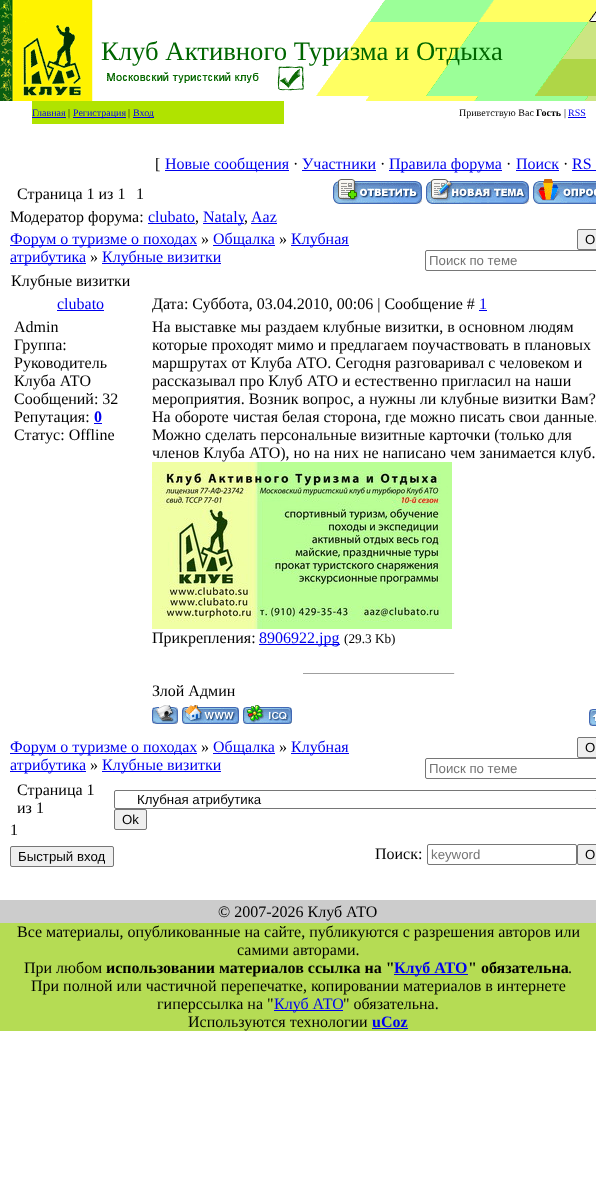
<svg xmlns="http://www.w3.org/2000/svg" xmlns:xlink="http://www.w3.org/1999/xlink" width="596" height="1178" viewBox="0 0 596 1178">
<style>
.cls-1{font:26.7px Liberation Serif;fill:#006600}
.cls-2{font:10px Liberation Serif;fill:#0000ee}
.cls-3{font:10px Liberation Serif;fill:#000000}
.cls-4{font:bold 10px Liberation Serif;fill:#000000}
.cls-5{font:16px Liberation Serif;fill:#000000}
.cls-6{font:16px Liberation Serif;fill:#0000ee}
.cls-7{font:13.25px Liberation Sans;fill:#000000}
.cls-8{font:13.25px Liberation Sans;fill:#757575}
.cls-9{font:bold 16px Liberation Serif;fill:#0000ee}
.cls-10{font:13.25px Liberation Serif;fill:#000000}
.cls-11{font:bold 16px Liberation Serif;fill:#000000}
</style>
<rect width="100%" height="100%" fill="#ffffff"/>
<image xlink:href="image0.png" x="0" y="0" width="93" height="22"/>
<image xlink:href="image1.png" x="369" y="0" width="227" height="22"/>
<image xlink:href="image2.png" x="0" y="22" width="93" height="79"/>
<image xlink:href="image3.png" x="107" y="22" width="489" height="79"/>
<rect fill="#b0e300" x="32" y="101" width="252" height="23"/>
<rect fill="#0000ee" x="32" y="117" width="34" height="1"/>
<rect fill="#0000ee" x="73" y="117" width="53" height="1"/>
<rect fill="#0000ee" x="133" y="117" width="21" height="1"/>
<rect fill="#0000ee" x="568" y="117" width="18" height="1"/>
<rect fill="#0000ee" x="165" y="170" width="124" height="1"/>
<rect fill="#0000ee" x="302" y="170" width="74" height="1"/>
<rect fill="#0000ee" x="389" y="170" width="113" height="1"/>
<rect fill="#0000ee" x="516" y="170" width="43" height="1"/>
<rect fill="#0000ee" x="572" y="170" width="24" height="1"/>
<image xlink:href="image4.png" x="333" y="179" width="89" height="25"/>
<image xlink:href="image5.png" x="426" y="179" width="103" height="25"/>
<image xlink:href="image6.png" x="533" y="179" width="63" height="25"/>
<rect fill="#0000ee" x="148" y="223" width="47" height="1"/>
<rect fill="#0000ee" x="203" y="223" width="41" height="1"/>
<rect fill="#0000ee" x="251" y="223" width="26" height="1"/>
<rect fill="#0000ee" x="10" y="245" width="187" height="1"/>
<rect fill="#0000ee" x="213" y="245" width="62" height="1"/>
<rect fill="#0000ee" x="291" y="245" width="58" height="1"/>
<rect fill="#0000ee" x="10" y="263" width="76" height="1"/>
<rect fill="#0000ee" x="102" y="263" width="119" height="1"/>
<rect fill="#efefef" stroke="#767676" x="577.5" y="229.5" width="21" height="20" rx="1.5"/>
<rect fill="none" stroke="#767676" x="425.5" y="250.5" width="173" height="20" rx="1.5"/>
<rect fill="#0000ee" x="57" y="310" width="47" height="1"/>
<rect fill="#0000ee" x="479" y="310" width="8" height="1"/>
<rect fill="#0000ee" x="94" y="423" width="8" height="1"/>
<image xlink:href="image7.png" x="152" y="462" width="300" height="167"/>
<rect fill="#0000ee" x="259" y="644" width="81" height="1"/>
<rect fill="#9f9f9f" x="303" y="673" width="152" height="1"/>
<rect fill="#eeeeee" x="454" y="673" width="1" height="1"/>
<image xlink:href="image8.png" x="152" y="705" width="26" height="19"/>
<image xlink:href="image9.png" x="182" y="705" width="57" height="19"/>
<image xlink:href="image10.png" x="243" y="705" width="49" height="19"/>
<image xlink:href="image11.png" x="589" y="709" width="7" height="17"/>
<rect fill="#0000ee" x="10" y="753" width="187" height="1"/>
<rect fill="#0000ee" x="213" y="753" width="62" height="1"/>
<rect fill="#0000ee" x="291" y="753" width="58" height="1"/>
<rect fill="#0000ee" x="10" y="771" width="76" height="1"/>
<rect fill="#0000ee" x="102" y="771" width="119" height="1"/>
<rect fill="#efefef" stroke="#767676" x="577.5" y="737.5" width="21" height="20" rx="1.5"/>
<rect fill="none" stroke="#767676" x="425.5" y="758.5" width="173" height="20" rx="1.5"/>
<rect fill="none" stroke="#767676" x="114.5" y="790.5" width="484" height="18" rx="1.5"/>
<path fill="none" stroke="#000000" stroke-width="2" d="M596.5 797.5L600.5 801.5L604.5 797.5"/>
<rect fill="#efefef" stroke="#767676" x="114.5" y="809.5" width="32" height="20" rx="1.5"/>
<rect fill="#efefef" stroke="#767676" x="10.5" y="846.5" width="103" height="20" rx="1.5"/>
<rect fill="none" stroke="#767676" x="427.5" y="844.5" width="149" height="20" rx="1.5"/>
<rect fill="#efefef" stroke="#767676" x="577.5" y="844.5" width="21" height="20" rx="1.5"/>
<rect fill="#cccccc" x="0" y="900" width="596" height="23"/>
<rect fill="#b5dc54" x="0" y="923" width="596" height="108"/>
<rect fill="#0000ee" x="394" y="974" width="74" height="1"/>
<rect fill="#0000ee" x="274" y="1010" width="69" height="1"/>
<rect fill="#0000ee" x="372" y="1028" width="36" height="1"/>
<text class="cls-1" x="101" y="60">Клуб Активного Туризма и Отдыха</text>
<text class="cls-2" x="32" y="116">Главная</text>
<text class="cls-3" x="68" y="116">|</text>
<text class="cls-2" x="73" y="116">Регистрация</text>
<text class="cls-3" x="128" y="116">|</text>
<text class="cls-2" x="133" y="116">Вход</text>
<text class="cls-3" x="459" y="116">Приветствую Вас</text>
<text class="cls-4" x="536" y="116">Гость</text>
<text class="cls-3" x="564" y="116">|</text>
<text class="cls-2" x="568" y="116">RSS</text>
<text class="cls-5" x="155" y="169">[</text>
<text class="cls-6" x="165" y="169">Новые сообщения</text>
<text class="cls-5" x="293" y="169">·</text>
<text class="cls-6" x="302" y="169">Участники</text>
<text class="cls-5" x="380" y="169">·</text>
<text class="cls-6" x="389" y="169">Правила форума</text>
<text class="cls-5" x="506" y="169">·</text>
<text class="cls-6" x="516" y="169">Поиск</text>
<text class="cls-5" x="563" y="169">·</text>
<text class="cls-6" x="572" y="169">RS</text>
<text class="cls-5" x="17" y="199">Страница 1 из 1</text>
<text class="cls-5" x="136" y="199">1</text>
<text class="cls-5" x="10" y="222">Модератор форума:</text>
<text class="cls-6" x="148" y="222">clubato</text>
<text class="cls-5" x="195" y="222">,</text>
<text class="cls-6" x="203" y="222">Nataly</text>
<text class="cls-6" x="251" y="222">Aaz</text>
<text class="cls-5" x="244" y="222">,</text>
<text class="cls-6" x="10" y="244">Форум о туризме о походах</text>
<text class="cls-5" x="201" y="244">»</text>
<text class="cls-6" x="213" y="244">Общалка</text>
<text class="cls-5" x="279" y="244">»</text>
<text class="cls-6" x="291" y="244">Клубная</text>
<text class="cls-6" x="10" y="262">атрибутика</text>
<text class="cls-5" x="90" y="262">»</text>
<text class="cls-6" x="102" y="262">Клубные визитки</text>
<text class="cls-7" x="585" y="244">O</text>
<text class="cls-8" x="429" y="265">Поиск по теме</text>
<text class="cls-5" x="11" y="286">Клубные визитки</text>
<text class="cls-6" x="57" y="309">clubato</text>
<text class="cls-5" x="152" y="309">Дата: Суббота, 03.04.2010, 00:06 | Сообщение #</text>
<text class="cls-6" x="479" y="309">1</text>
<text class="cls-5"><tspan x="14" y="332">Admin</tspan><tspan x="14" y="350">Группа:</tspan><tspan x="14" y="368">Руководитель</tspan><tspan x="14" y="386">Клуба АТО</tspan><tspan x="14" y="404">Сообщений: 32</tspan><tspan x="14" y="422">Репутация:</tspan></text>
<text class="cls-9" x="94" y="422">0</text>
<text class="cls-5" x="14" y="440">Статус: Offline</text>
<text class="cls-5"><tspan x="152" y="332">На выставке мы раздаем клубные визитки, в основном людям</tspan><tspan x="152" y="350">которые проходят мимо и предлагаем поучаствовать в плановых</tspan><tspan x="152" y="368">маршрутах от Клуба АТО. Сегодня разговаривал с человеком и</tspan><tspan x="152" y="386">рассказывал про Клуб АТО и естественно пригласил на наши</tspan><tspan x="152" y="404">мероприятия. Возник вопрос, а нужны ли клубные визитки Вам?</tspan><tspan x="152" y="422">На обороте чистая белая сторона, где можно писать свои данные.</tspan><tspan x="152" y="440">Можно сделать персональные визитные карточки (только для</tspan><tspan x="152" y="458">членов Клуба АТО), но на них не написано чем занимается клуб.</tspan></text>
<text class="cls-5" x="152" y="643">Прикрепления:</text>
<text class="cls-6" x="259" y="643">8906922.jpg</text>
<text class="cls-10" x="344" y="643">(29.3 Kb)</text>
<text class="cls-5" x="152" y="696">Злой Админ</text>
<text class="cls-6" x="10" y="752">Форум о туризме о походах</text>
<text class="cls-5" x="201" y="752">»</text>
<text class="cls-6" x="213" y="752">Общалка</text>
<text class="cls-5" x="279" y="752">»</text>
<text class="cls-6" x="291" y="752">Клубная</text>
<text class="cls-6" x="10" y="770">атрибутика</text>
<text class="cls-5" x="90" y="770">»</text>
<text class="cls-6" x="102" y="770">Клубные визитки</text>
<text class="cls-7" x="585" y="752">O</text>
<text class="cls-8" x="429" y="773">Поиск по теме</text>
<text class="cls-5"><tspan x="17" y="795">Страница 1</tspan><tspan x="17" y="813">из 1</tspan></text>
<text class="cls-5" x="10" y="835">1</text>
<text class="cls-7" x="137" y="804">Клубная атрибутика</text>
<text class="cls-7" x="122" y="824">Ok</text>
<text class="cls-7" x="18" y="861">Быстрый вход</text>
<text class="cls-5" x="375" y="859">Поиск:</text>
<text class="cls-8" x="431" y="859">keyword</text>
<text class="cls-7" x="585" y="859">O</text>
<text class="cls-5" x="218" y="917">© 2007-2026 Клуб АТО</text>
<text class="cls-5" x="17" y="937">Все материалы, опубликованные на сайте, публикуются с разрешения авторов или</text>
<text class="cls-5" x="237" y="955">самими авторами.</text>
<text class="cls-5" x="24" y="973">При любом</text>
<text class="cls-11" x="106" y="973">использовании материалов ссылка на "</text>
<text class="cls-9" x="394" y="973">Клуб АТО</text>
<text class="cls-11" x="468" y="973">" обязательна</text>
<text class="cls-5" x="568" y="973">.</text>
<text class="cls-5" x="31" y="991">При полной или частичной перепечатке, копировании материалов в интернете</text>
<text class="cls-5" x="157" y="1009">гиперссылка на "</text>
<text class="cls-6" x="274" y="1009">Клуб АТО</text>
<text class="cls-5" x="343" y="1009">" обязательна.</text>
<text class="cls-5" x="188" y="1027">Используются технологии</text>
<text class="cls-9" x="372" y="1027">uCoz</text>
</svg>
